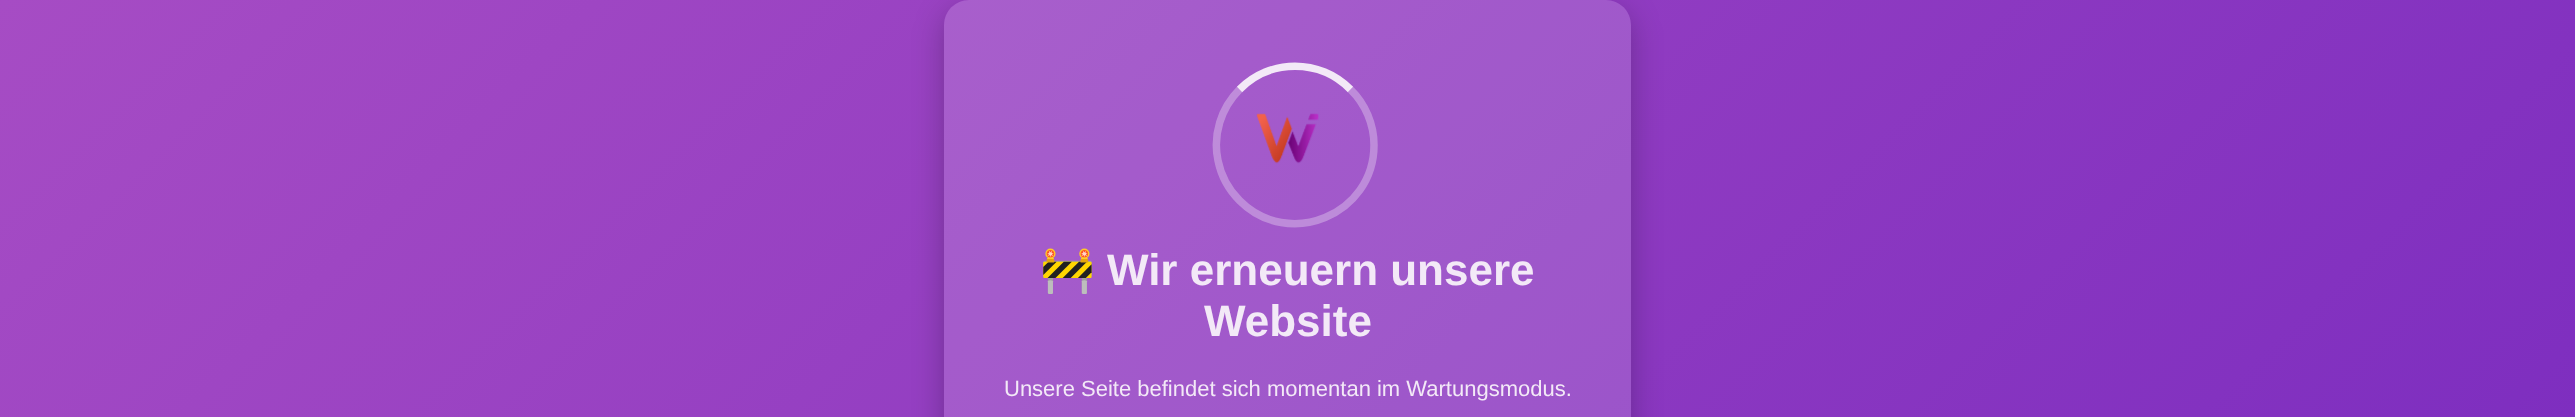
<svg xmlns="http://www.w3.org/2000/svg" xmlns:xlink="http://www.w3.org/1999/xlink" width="2575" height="417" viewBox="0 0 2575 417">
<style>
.cls-1{font:bold 44px Noto Color Emoji;fill:#f3e9f7}
.cls-2{font:bold 44px Liberation Sans;fill:#f3e9f7}
.cls-3{font:22px Liberation Sans;fill:#f3e9f7}
</style>
<defs>
<linearGradient id="g1" gradientUnits="userSpaceOnUse" x1="485" y1="-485" x2="2090" y2="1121"><stop offset="0" stop-color="#a64cc4"/><stop offset="1" stop-color="#7b2cbf"/></linearGradient>
<clipPath id="clip1"><path d="M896 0H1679V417H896ZM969 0H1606C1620 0 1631 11 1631 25V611C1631 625 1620 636 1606 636H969C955 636 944 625 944 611V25C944 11 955 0 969 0Z" clip-rule="evenodd"/></clipPath>
</defs>
<rect width="100%" height="100%" fill="#ffffff"/>
<rect fill="url(#g1)" x="0" y="0" width="2575" height="417"/>
<g clip-path="url(#clip1)">
<rect fill="#000000" fill-opacity="0.25" filter="blur(15.5px)" x="944" y="10" width="687" height="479" rx="25"/>
</g>
<rect fill="#ffffff" fill-opacity="0.15" x="944" y="0" width="687" height="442" rx="25"/>
<path fill="none" stroke="#f3e9f7" stroke-width="7.5" d="M1239.5 89.5C1270 58.5 1320 58.5 1350.5 89.5"/>
<path fill="none" stroke="#ffffff" stroke-opacity="0.3" stroke-width="7.5" d="M1350.5 89.5C1365.5 104 1374 124.5 1374 145C1374 215 1288.5 250 1239.5 200.5C1228.5 189.5 1221 175.5 1218 160.5C1212.5 135 1221 108 1239.5 89.5"/>
<image xlink:href="image0.png" x="1256" y="113" width="63" height="51"/>
<text class="cls-1" x="1040" y="285">🚧</text>
<text class="cls-2" x="1107" y="285">Wir erneuern unsere</text>
<text class="cls-2" x="1204" y="336">Website</text>
<text class="cls-3" x="1004" y="396">Unsere Seite befindet sich momentan im Wartungsmodus.</text>
</svg>
